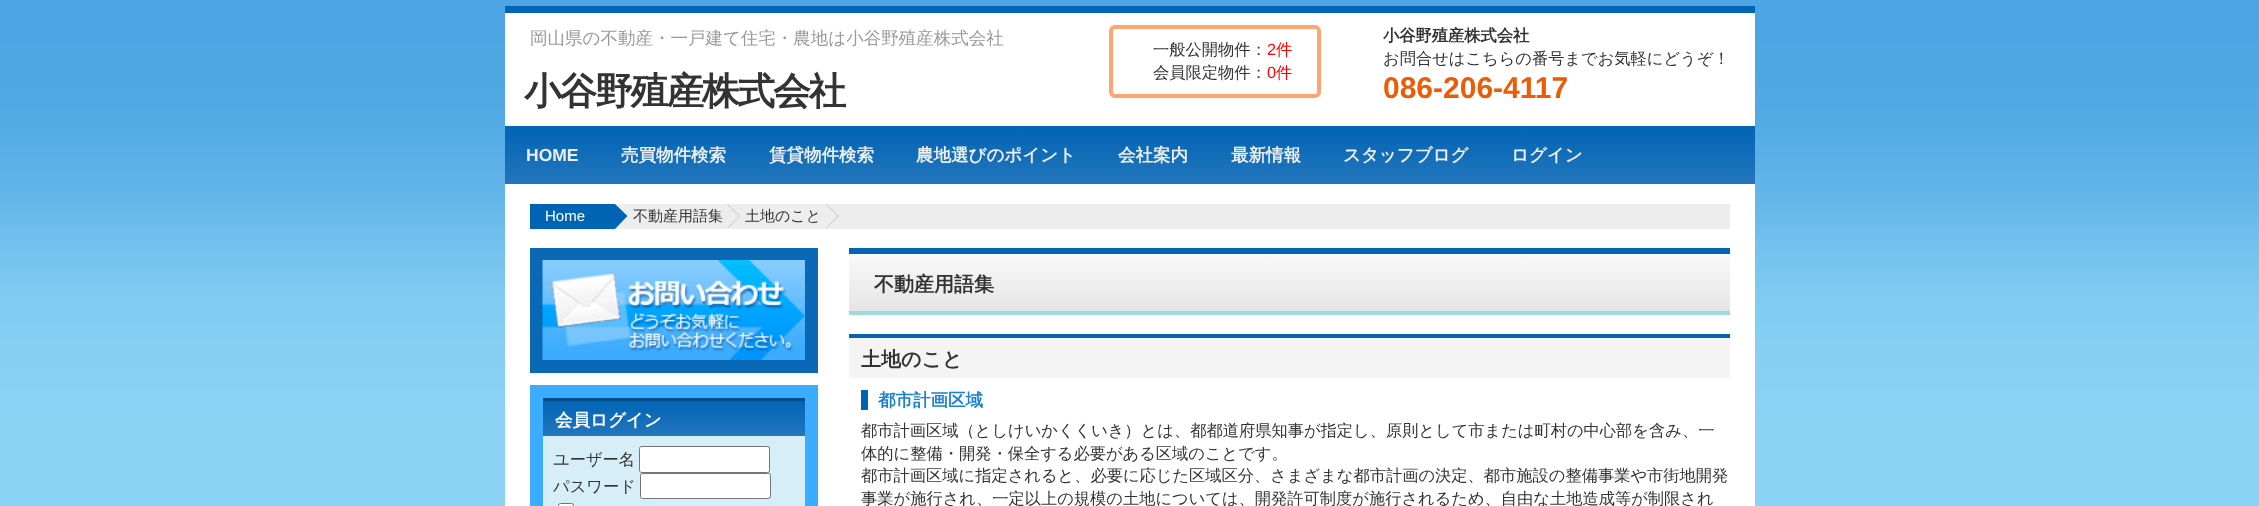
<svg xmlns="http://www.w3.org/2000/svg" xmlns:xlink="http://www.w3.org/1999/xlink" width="2259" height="506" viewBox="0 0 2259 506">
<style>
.cls-1{font:500 17.5px WenQuanYi Zen Hei;fill:#999999}
.cls-2{font:bold 37.5px WenQuanYi Zen Hei;letter-spacing:-1.9px;fill:#333333}
.cls-3{font:500 16.25px WenQuanYi Zen Hei;fill:#333333}
.cls-4{font:16.25px Liberation Sans;fill:#ff0000}
.cls-5{font:500 16.25px WenQuanYi Zen Hei;fill:#ff0000}
.cls-6{font:bold 16.25px WenQuanYi Zen Hei;fill:#333333}
.cls-7{font:bold 30px Liberation Sans;fill:#ea5c07}
.cls-8{font:bold 17.5px Liberation Sans;fill:#eeeeee}
.cls-9{font:bold 17.5px WenQuanYi Zen Hei;fill:#eeeeee}
.cls-10{font:15px Liberation Sans;fill:#ffffff}
.cls-11{font:500 15px WenQuanYi Zen Hei;fill:#333333}
.cls-12{font:bold 17.5px WenQuanYi Zen Hei;fill:#ffffff}
.cls-13{font:bold 20px WenQuanYi Zen Hei;fill:#333333}
.cls-14{font:bold 17.5px WenQuanYi Zen Hei;fill:#1982d1}
</style>
<defs>
<linearGradient id="g1" gradientUnits="userSpaceOnUse" x1="1130" y1="126" x2="1130" y2="184"><stop offset="0" stop-color="#0064b6"/><stop offset="1" stop-color="#2376bb"/></linearGradient>
<linearGradient id="g2" gradientUnits="userSpaceOnUse" x1="674" y1="400" x2="674" y2="436"><stop offset="0" stop-color="#0064b6"/><stop offset="1" stop-color="#2376bb"/></linearGradient>
<linearGradient id="g3" gradientUnits="userSpaceOnUse" x1="1289" y1="254" x2="1289" y2="311"><stop offset="0" stop-color="#f9f9f9"/><stop offset="1" stop-color="#e5e5e5"/></linearGradient>
</defs>
<rect width="100%" height="100%" fill="#ffffff"/>
<image xlink:href="image0.png" x="0" y="0" width="2259" height="506"/>
<rect fill="#ffffff" x="505" y="13" width="1250" height="493"/>
<rect fill="#0064b5" x="505" y="6" width="1250" height="7"/>
<rect fill="none" stroke="#fea671" stroke-width="4" x="1111" y="27" width="208" height="69" rx="4"/>
<rect fill="url(#g1)" x="505" y="126" width="1250" height="58"/>
<rect fill="#ededed" x="615" y="204" width="1115" height="25"/>
<rect fill="#0064b5" x="530" y="204" width="85" height="25"/>
<path fill="#0064b5" d="M615 229V204L627.5 216Z"/>
<path fill="#cccccc" d="M727.5 229V204L740 216Z"/>
<path fill="#ededed" d="M726 229V204L739 216Z"/>
<path fill="#cccccc" d="M826 229V204L839 216Z"/>
<path fill="#ededed" d="M825 229V204L837.5 216Z"/>
<rect fill="none" stroke="#0a69b7" stroke-width="13" x="536.5" y="254.5" width="275" height="112"/>
<image xlink:href="image1.png" x="542" y="260" width="263" height="100"/>
<rect fill="#d5eef8" x="543" y="436" width="262" height="70"/>
<rect fill="none" stroke="#3cacfe" stroke-width="13" x="536.5" y="391.5" width="275" height="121"/>
<rect fill="url(#g2)" x="543" y="401" width="262" height="35"/>
<rect fill="#024d8a" x="543" y="398" width="262" height="3"/>
<rect fill="#ffffff" stroke="#767676" x="639.5" y="446.5" width="130" height="26" rx="2"/>
<rect fill="#ffffff" stroke="#767676" x="640.5" y="473.5" width="130" height="25" rx="2"/>
<rect fill="#ffffff" stroke="#767676" x="558.5" y="503.5" width="15" height="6" rx="2"/>
<rect fill="url(#g3)" x="849" y="254" width="881" height="57"/>
<rect fill="#0663b1" x="849" y="248" width="881" height="6"/>
<rect fill="#9adbdd" x="849" y="311" width="881" height="4"/>
<rect fill="#f4f4f4" x="849" y="338" width="881" height="40"/>
<rect fill="#0663b1" x="849" y="334" width="881" height="4"/>
<rect fill="#0064b6" x="861" y="390" width="7" height="20"/>
<text class="cls-1" x="530" y="44">岡山県の不動産・一戸建て住宅・農地は小谷野殖産株式会社</text>
<text class="cls-2" x="524" y="104">小谷野殖産株式会社</text>
<text class="cls-3" x="1153" y="55">一般公開物件：</text>
<text class="cls-4" x="1267" y="55">2</text>
<text class="cls-5" x="1276" y="55">件</text>
<text class="cls-3" x="1153" y="78">会員限定物件：</text>
<text class="cls-4" x="1267" y="78">0</text>
<text class="cls-5" x="1276" y="78">件</text>
<text class="cls-6" x="1383" y="41">小谷野殖産株式会社</text>
<text class="cls-3" x="1383" y="64">お問合せはこちらの番号までお気軽にどうぞ！</text>
<text class="cls-7" x="1383" y="98">086-206-4117</text>
<text class="cls-8" x="526" y="161">HOME</text>
<text class="cls-9" x="621" y="161">売買物件検索</text>
<text class="cls-9" x="769" y="161">賃貸物件検索</text>
<text class="cls-9" x="916" y="161">農地選びのポイント</text>
<text class="cls-9" x="1118" y="161">会社案内</text>
<text class="cls-9" x="1231" y="161">最新情報</text>
<text class="cls-9" x="1343" y="161">スタッフブログ</text>
<text class="cls-9" x="1511" y="161">ログイン</text>
<text class="cls-10" x="545" y="221">Home</text>
<text class="cls-11" x="633" y="221">不動産用語集</text>
<text class="cls-11" x="745" y="221">土地のこと</text>
<text class="cls-12" x="555" y="426">会員ログイン</text>
<text class="cls-3"><tspan x="553" y="465">ユーザー名</tspan><tspan x="553" y="492">パスワード</tspan></text>
<text class="cls-13" x="874" y="291">不動産用語集</text>
<text class="cls-13" x="861" y="366">土地のこと</text>
<text class="cls-14" x="878" y="406">都市計画区域</text>
<text class="cls-3"><tspan x="861" y="436">都市計画区域（としけいかくくいき）とは、都都道府県知事が指定し、原則として市または町村の中心部を含み、一</tspan><tspan x="861" y="459">体的に整備・開発・保全する必要がある区域のことです。</tspan><tspan x="861" y="481">都市計画区域に指定されると、必要に応じた区域区分、さまざまな都市計画の決定、都市施設の整備事業や市街地開発</tspan><tspan x="861" y="504">事業が施行され、一定以上の規模の土地については、開発許可制度が施行されるため、自由な土地造成等が制限され</tspan></text>
</svg>
